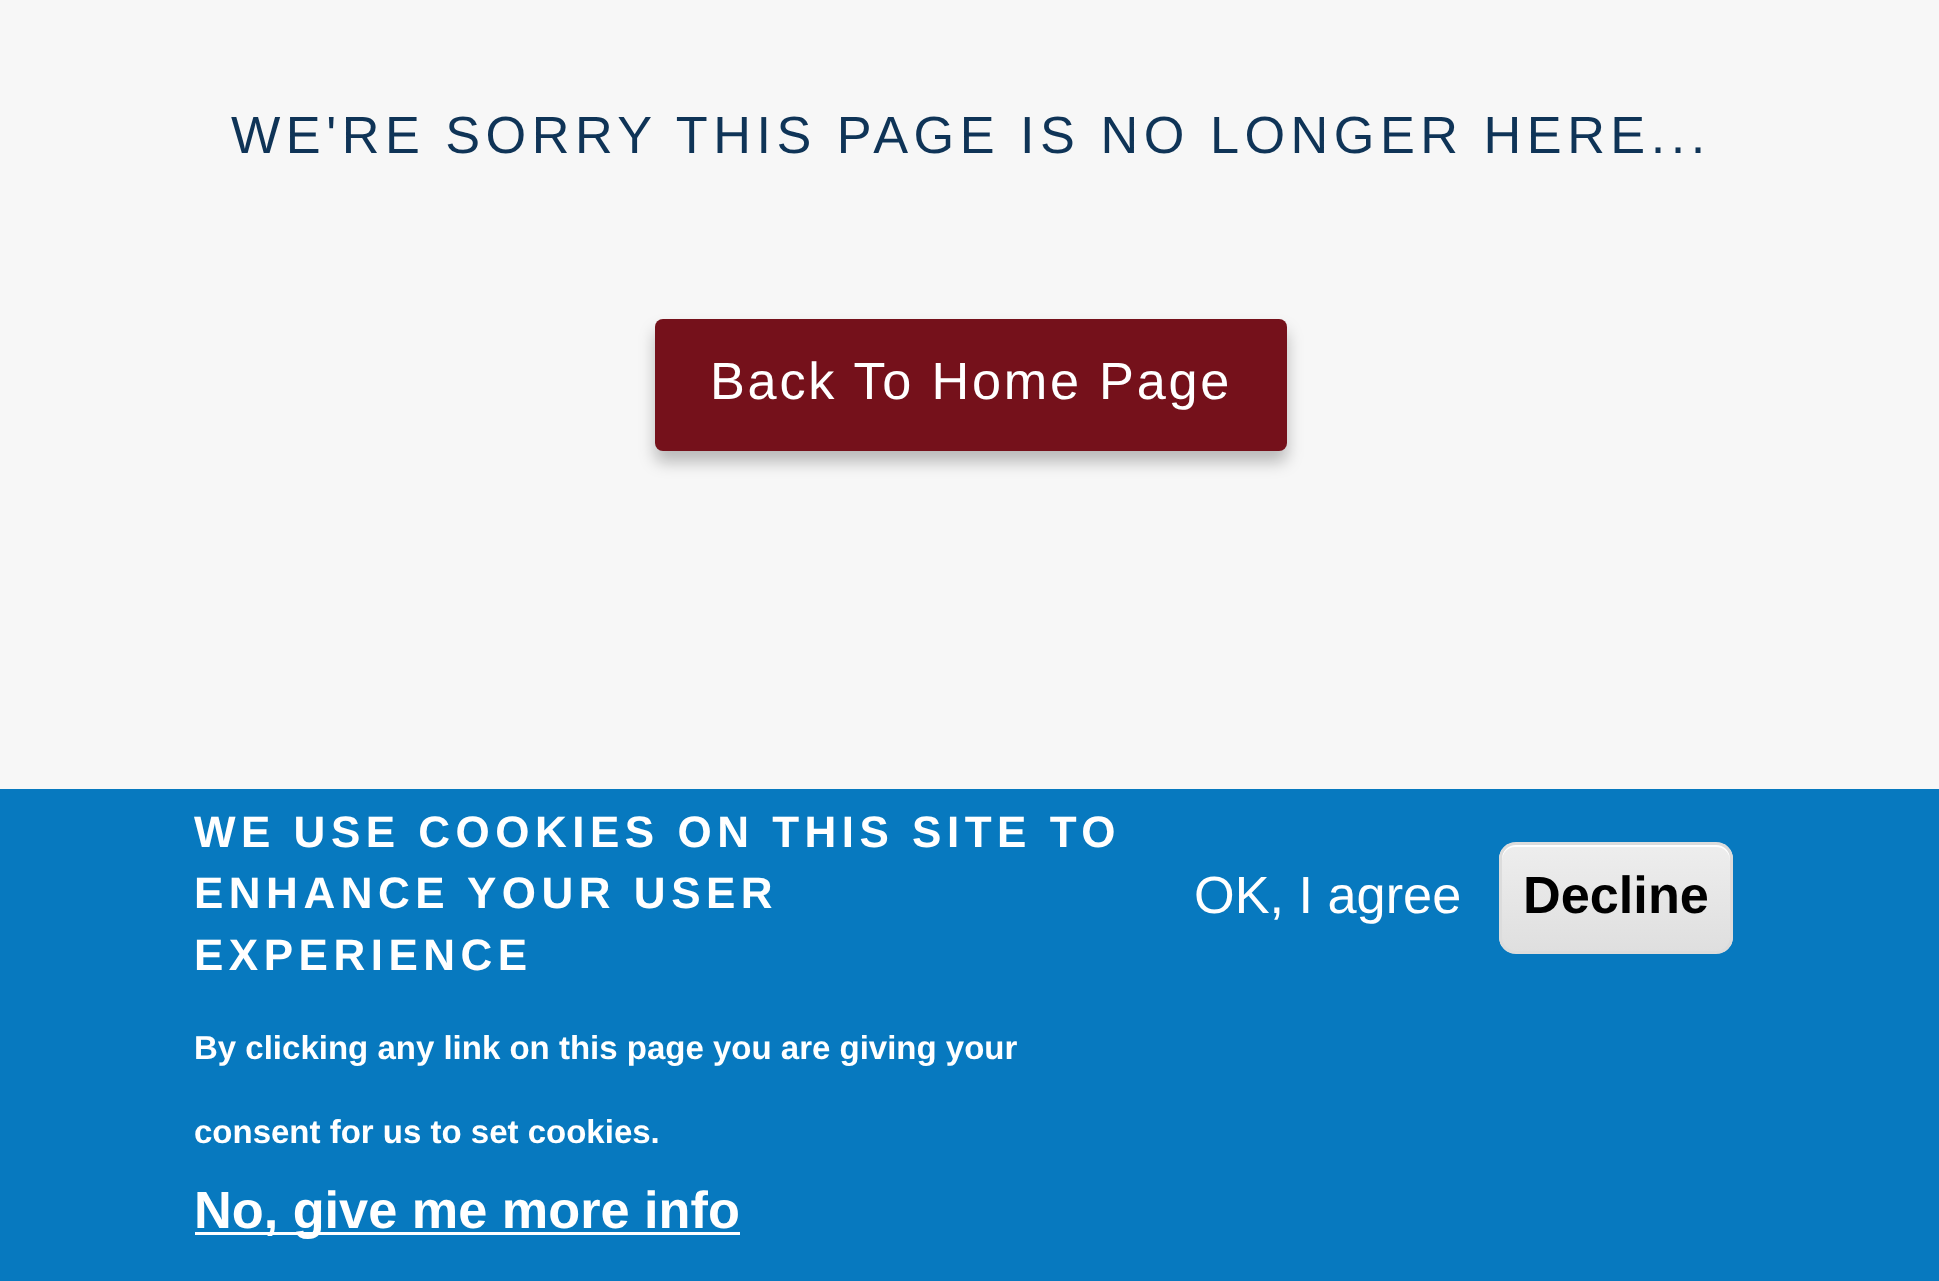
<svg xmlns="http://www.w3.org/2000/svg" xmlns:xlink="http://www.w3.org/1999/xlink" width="1939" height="1281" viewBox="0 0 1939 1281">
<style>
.cls-1{font:52.25px Liberation Sans;letter-spacing:5.5px;fill:#0f3457}
.cls-2{font:52.25px Liberation Sans;letter-spacing:2.75px;fill:#ffffff}
.cls-3{font:bold 44px Liberation Sans;letter-spacing:5.5px;fill:#ffffff}
.cls-4{font:bold 33px Liberation Sans;fill:#ffffff}
.cls-5{font:bold 52.25px Liberation Sans;fill:#ffffff}
.cls-6{font:52.25px Liberation Sans;fill:#ffffff}
.cls-7{font:bold 52.25px Liberation Sans;fill:#000000}
</style>
<defs>
<clipPath id="clip1"><rect x="1499" y="842" width="234" height="112" rx="17"/></clipPath>
<linearGradient id="g1" gradientUnits="userSpaceOnUse" x1="1616" y1="844" x2="1616" y2="952"><stop offset="0.05" stop-color="#ededed"/><stop offset="1" stop-color="#dfdfdf"/></linearGradient>
</defs>
<rect width="100%" height="100%" fill="#f7f7f7"/>
<rect fill="#000000" fill-opacity="0.25" filter="blur(8px)" x="655" y="330" width="632" height="132" rx="8"/>
<rect fill="#75111b" x="655" y="319" width="632" height="132" rx="8"/>
<rect fill="#0779bf" x="0" y="789" width="1939" height="492"/>
<rect fill="#ffffff" x="195" y="1232" width="545" height="3"/>
<g clip-path="url(#clip1)">
<rect fill="url(#g1)" x="1499" y="844" width="234" height="108"/>
</g>
<path fill="#ffffff" d="M1515 847H1716C1724 847 1730 853 1730 861V858C1730 850 1724 844 1716 844H1516C1508 844 1502 850 1502 858V861C1502 853 1508 847 1515 847Z"/>
<rect fill="none" stroke="#dcdcdc" stroke-width="3" x="1500.5" y="843.5" width="231" height="109" rx="15.5"/>
<text class="cls-1" x="231" y="153">WE'RE SORRY THIS PAGE IS NO LONGER HERE...</text>
<text class="cls-2" x="710" y="399">Back To Home Page</text>
<text class="cls-3"><tspan x="194" y="847">WE USE COOKIES ON THIS SITE TO</tspan><tspan x="194" y="908">ENHANCE YOUR USER</tspan><tspan x="194" y="970">EXPERIENCE</tspan></text>
<text class="cls-4" x="194" y="1059">By clicking any link on this page you are giving your</text>
<text class="cls-4" x="194" y="1143">consent for us to set cookies.</text>
<text class="cls-5" x="194" y="1228">No, give me more info</text>
<text class="cls-6" x="1194" y="913">OK, I agree</text>
<text class="cls-7" x="1523" y="913">Decline</text>
</svg>
